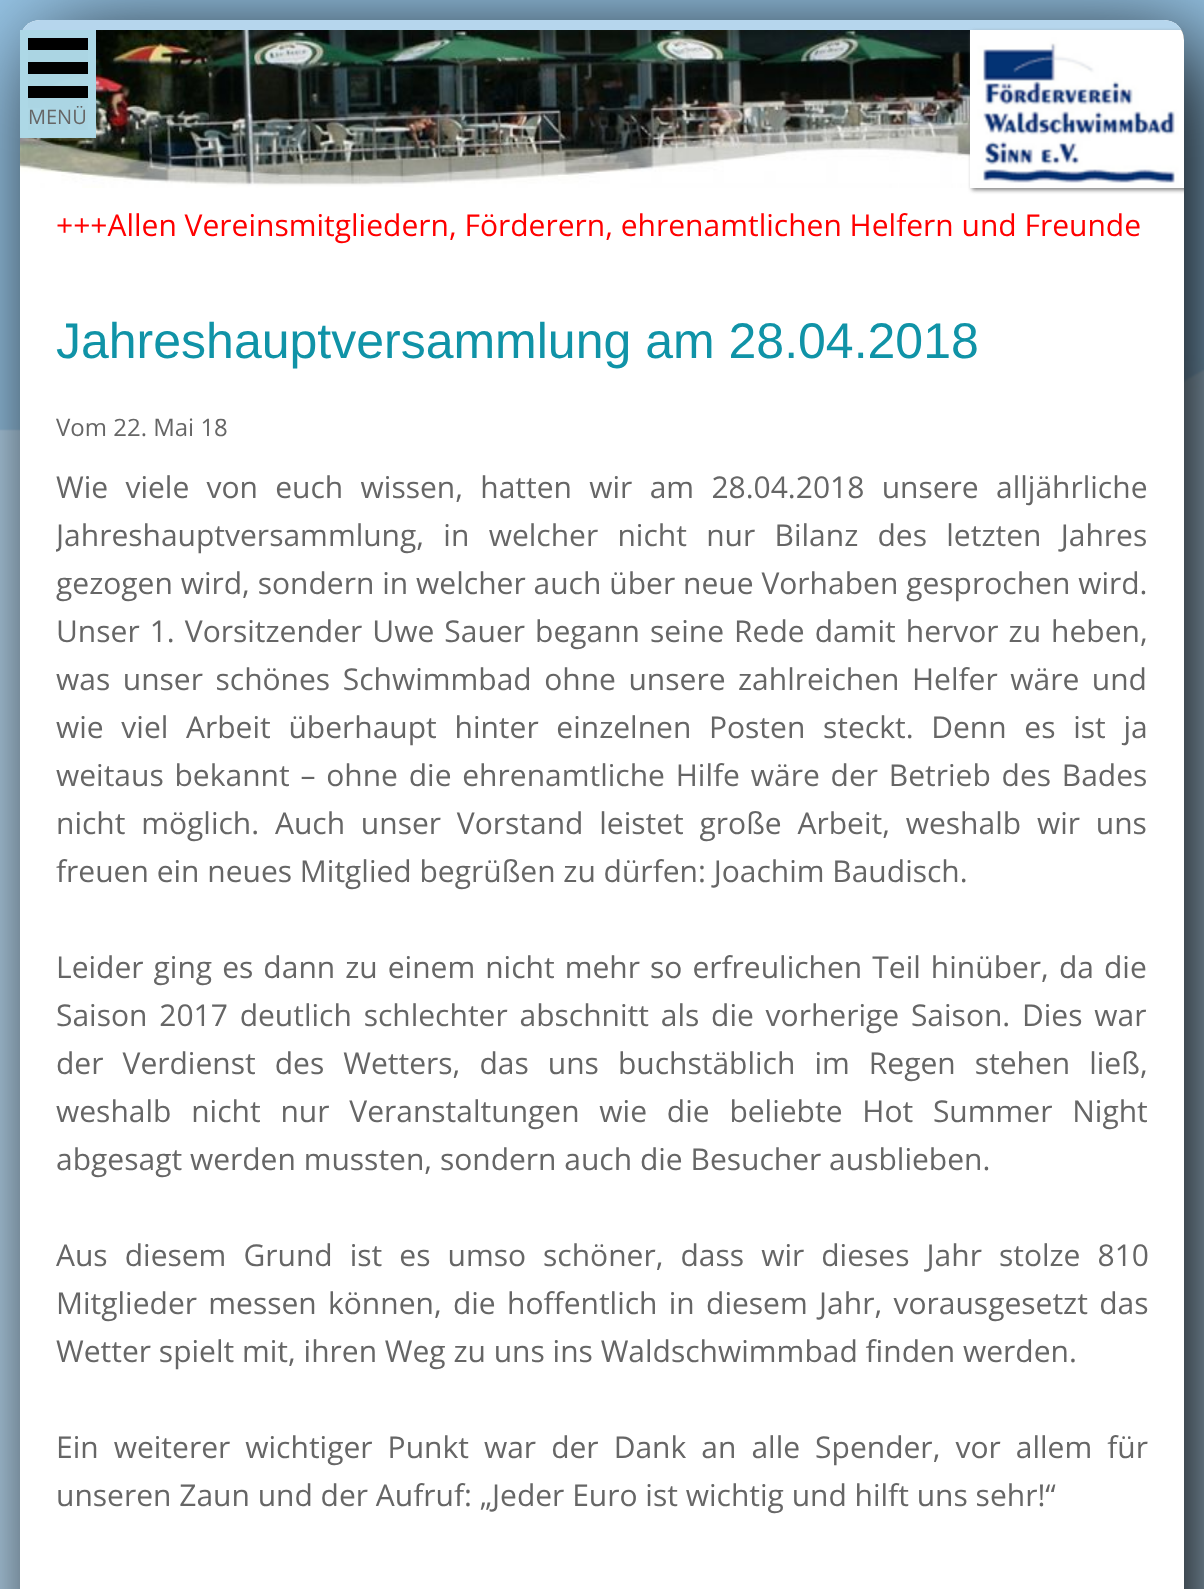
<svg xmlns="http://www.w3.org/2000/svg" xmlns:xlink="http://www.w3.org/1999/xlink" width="1204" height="1589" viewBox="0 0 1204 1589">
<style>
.cls-1{font:20px Open Sans;fill:#666666}
.cls-2{font:30px Open Sans;fill:#ff0000}
.cls-3{font:50px Liberation Sans;fill:#1093a7}
.cls-4{font:24px Open Sans;fill:#666666}
.cls-5{font:30px Open Sans;fill:#666666}
</style>
<defs>
<clipPath id="clip1"><rect x="20" y="20" width="1164" height="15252" rx="20"/></clipPath>
<clipPath id="clip2"><rect x="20" y="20" width="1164" height="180"/></clipPath>
<clipPath id="clip3"><path d="M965 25H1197V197H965ZM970 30H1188V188H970Z" clip-rule="evenodd"/></clipPath>
<clipPath id="clip4"><rect x="56" y="296" width="1092" height="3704"/></clipPath>
</defs>
<rect width="100%" height="100%" fill="#b6d6ed"/>
<image xlink:href="image0.png" x="0" y="0" width="1204" height="431"/>
<rect fill="#000000" filter="blur(50px)" x="40" y="40" width="1164" height="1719" rx="20"/>
<rect fill="#ffffff" x="20" y="20" width="1164" height="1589" rx="20"/>
<image xlink:href="image2.png" x="20" y="30" width="1164" height="158"/>
<path fill="#add8e6" fill-opacity="0.99" d="M24 30H96V134C96 136 94 138 92 138H24C22 138 20 136 20 134V34C20 32 22 30 24 30Z"/>
<rect fill="#000000" x="28" y="38" width="60" height="12"/>
<rect fill="#000000" x="28" y="86" width="60" height="12"/>
<rect fill="#000000" x="28" y="62" width="60" height="12"/>
<path fill="none" stroke="#add8e6" stroke-opacity="0.99" stroke-width="8" d="M24 34H92V134H24Z"/>
<g clip-path="url(#clip1)">
<rect fill="#b6d6ed" x="22" y="20" width="1160" height="10"/>
</g>
<g clip-path="url(#clip2)">
<g clip-path="url(#clip3)">
<rect fill="#808080" filter="blur(2px)" x="972" y="32" width="218" height="158"/>
</g>
</g>
<image xlink:href="image1.png" x="970" y="30" width="214" height="154"/>
<text class="cls-1" x="28" y="124">MENÜ</text>
<text class="cls-2" x="56" y="236">+++Allen Vereinsmitgliedern, Förderern, ehrenamtlichen Helfern und Freunde</text>
<text class="cls-3" x="56" y="358">Jahreshauptversammlung am 28.04.2018</text>
<text class="cls-4" x="56" y="436">Vom 22. Mai 18</text>
<text class="cls-5" x="56" y="498" word-spacing="9.5">Wie viele von euch wissen, hatten wir am 28.04.2018 unsere alljährliche</text>
<g clip-path="url(#clip4)">
<text class="cls-5" x="56" y="546" word-spacing="11.5">Jahreshauptversammlung, in welcher nicht nur Bilanz des letzten Jahres</text>
</g>
<text class="cls-5"><tspan x="56" y="594" word-spacing="0.1">gezogen wird, sondern in welcher auch über neue Vorhaben gesprochen wird.</tspan><tspan x="56" y="642" word-spacing="2.25">Unser 1. Vorsitzender Uwe Sauer begann seine Rede damit hervor zu heben,</tspan><tspan x="56" y="690" word-spacing="4.75">was unser schönes Schwimmbad ohne unsere zahlreichen Helfer wäre und</tspan><tspan x="56" y="738" word-spacing="9.9">wie viel Arbeit überhaupt hinter einzelnen Posten steckt. Denn es ist ja</tspan><tspan x="56" y="786" word-spacing="3">weitaus bekannt – ohne die ehrenamtliche Hilfe wäre der Betrieb des Bades</tspan><tspan x="56" y="834" word-spacing="8">nicht möglich. Auch unser Vorstand leistet große Arbeit, weshalb wir uns</tspan><tspan x="56" y="882">freuen ein neues Mitglied begrüßen zu dürfen: Joachim Baudisch.</tspan></text>
<text class="cls-5"><tspan x="56" y="978" word-spacing="2.25">Leider ging es dann zu einem nicht mehr so erfreulichen Teil hinüber, da die</tspan><tspan x="56" y="1026" word-spacing="4">Saison 2017 deutlich schlechter abschnitt als die vorherige Saison. Dies war</tspan><tspan x="56" y="1074" word-spacing="11.25">der Verdienst des Wetters, das uns buchstäblich im Regen stehen ließ,</tspan><tspan x="56" y="1122" word-spacing="12">weshalb nicht nur Veranstaltungen wie die beliebte Hot Summer Night</tspan><tspan x="56" y="1170">abgesagt werden mussten, sondern auch die Besucher ausblieben.</tspan></text>
<text class="cls-5"><tspan x="56" y="1266" word-spacing="9.25">Aus diesem Grund ist es umso schöner, dass wir dieses Jahr stolze 810</tspan><tspan x="56" y="1314" word-spacing="3.5">Mitglieder messen können, die hoffentlich in diesem Jahr, vorausgesetzt das</tspan><tspan x="56" y="1362">Wetter spielt mit, ihren Weg zu uns ins Waldschwimmbad finden werden.</tspan></text>
<text class="cls-5"><tspan x="56" y="1458" word-spacing="7.25">Ein weiterer wichtiger Punkt war der Dank an alle Spender, vor allem für</tspan><tspan x="56" y="1506">unseren Zaun und der Aufruf: „Jeder Euro ist wichtig und hilft uns sehr!“</tspan></text>
</svg>
